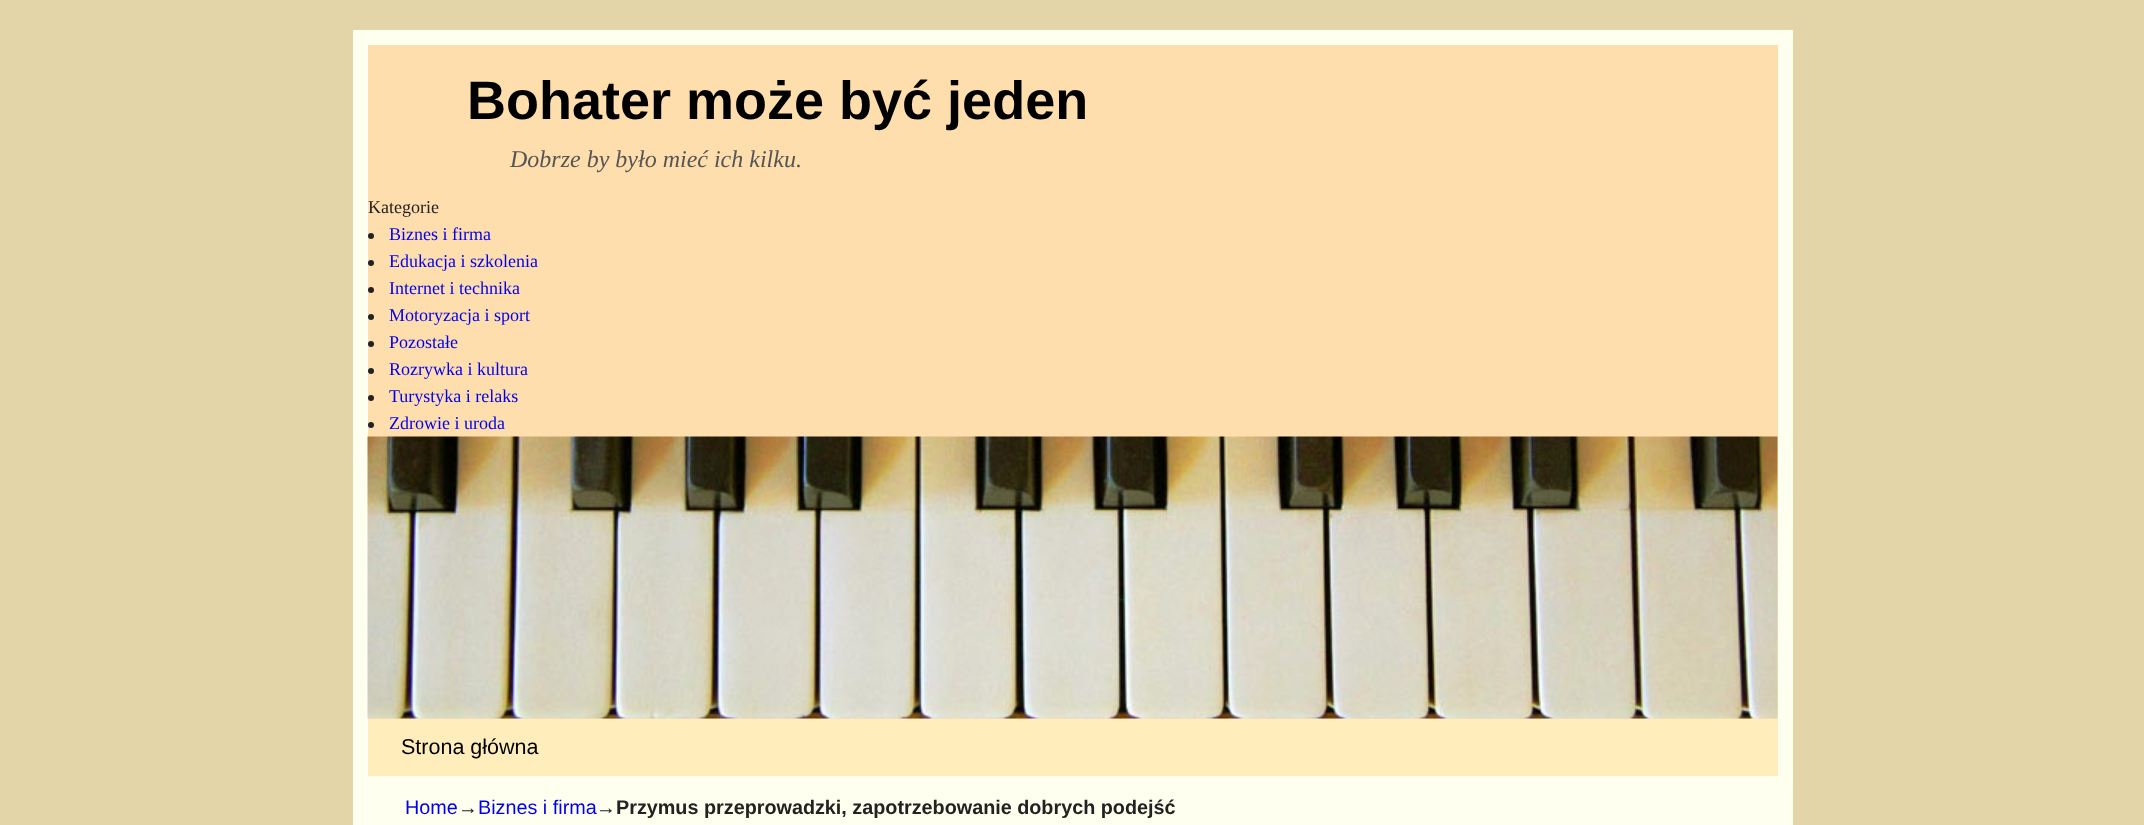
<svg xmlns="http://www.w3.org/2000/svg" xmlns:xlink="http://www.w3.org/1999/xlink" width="2144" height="825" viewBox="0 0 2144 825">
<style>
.cls-1{font:bold 54px Liberation Sans;fill:#000000}
.cls-2{font:italic 24px Liberation Serif;fill:#555555}
.cls-3{font:18px Liberation Serif;fill:#222222}
.cls-4{font:18px Liberation Serif;fill:#0000ee}
.cls-5{font:21.5px Liberation Sans;fill:#000000}
.cls-6{font:19.8px Liberation Sans;fill:#0000ee}
.cls-7{font:19.8px Liberation Sans;fill:#222222}
.cls-8{font:bold 19.8px Liberation Sans;fill:#222222}
</style>
<rect width="100%" height="100%" fill="#e3d5a7"/>
<rect fill="#fffff0" x="353" y="30" width="1440" height="795"/>
<rect fill="#ffdead" x="368" y="45" width="1410" height="674"/>
<circle fill="#222222" cx="371" cy="236" r="3"/>
<circle fill="#222222" cx="371" cy="263" r="3"/>
<circle fill="#222222" cx="371" cy="290" r="3"/>
<circle fill="#222222" cx="371" cy="317" r="3"/>
<circle fill="#222222" cx="371" cy="344" r="3"/>
<circle fill="#222222" cx="371" cy="371" r="3"/>
<circle fill="#222222" cx="371" cy="398" r="3"/>
<circle fill="#222222" cx="371" cy="425" r="3"/>
<image xlink:href="image0.png" x="367" y="436" width="1411" height="283"/>
<rect fill="#ffeebb" x="368" y="719" width="1410" height="57"/>
<text class="cls-1" x="467" y="119">Bohater może być jeden</text>
<text class="cls-2" x="510" y="167">Dobrze by było mieć ich kilku.</text>
<text class="cls-3" x="368" y="213">Kategorie</text>
<text class="cls-4"><tspan x="389" y="240">Biznes i firma</tspan><tspan x="389" y="267">Edukacja i szkolenia</tspan><tspan x="389" y="294">Internet i technika</tspan><tspan x="389" y="321">Motoryzacja i sport</tspan><tspan x="389" y="348">Pozostałe</tspan><tspan x="389" y="375">Rozrywka i kultura</tspan><tspan x="389" y="402">Turystyka i relaks</tspan><tspan x="389" y="429">Zdrowie i uroda</tspan></text>
<text class="cls-5" x="401" y="754">Strona główna</text>
<text class="cls-6" x="405" y="814">Home</text>
<text class="cls-7" x="458" y="814">→</text>
<text class="cls-6" x="478" y="814">Biznes i firma</text>
<text class="cls-7" x="596" y="814">→</text>
<text class="cls-8" x="616" y="814">Przymus przeprowadzki, zapotrzebowanie dobrych podejść</text>
</svg>
